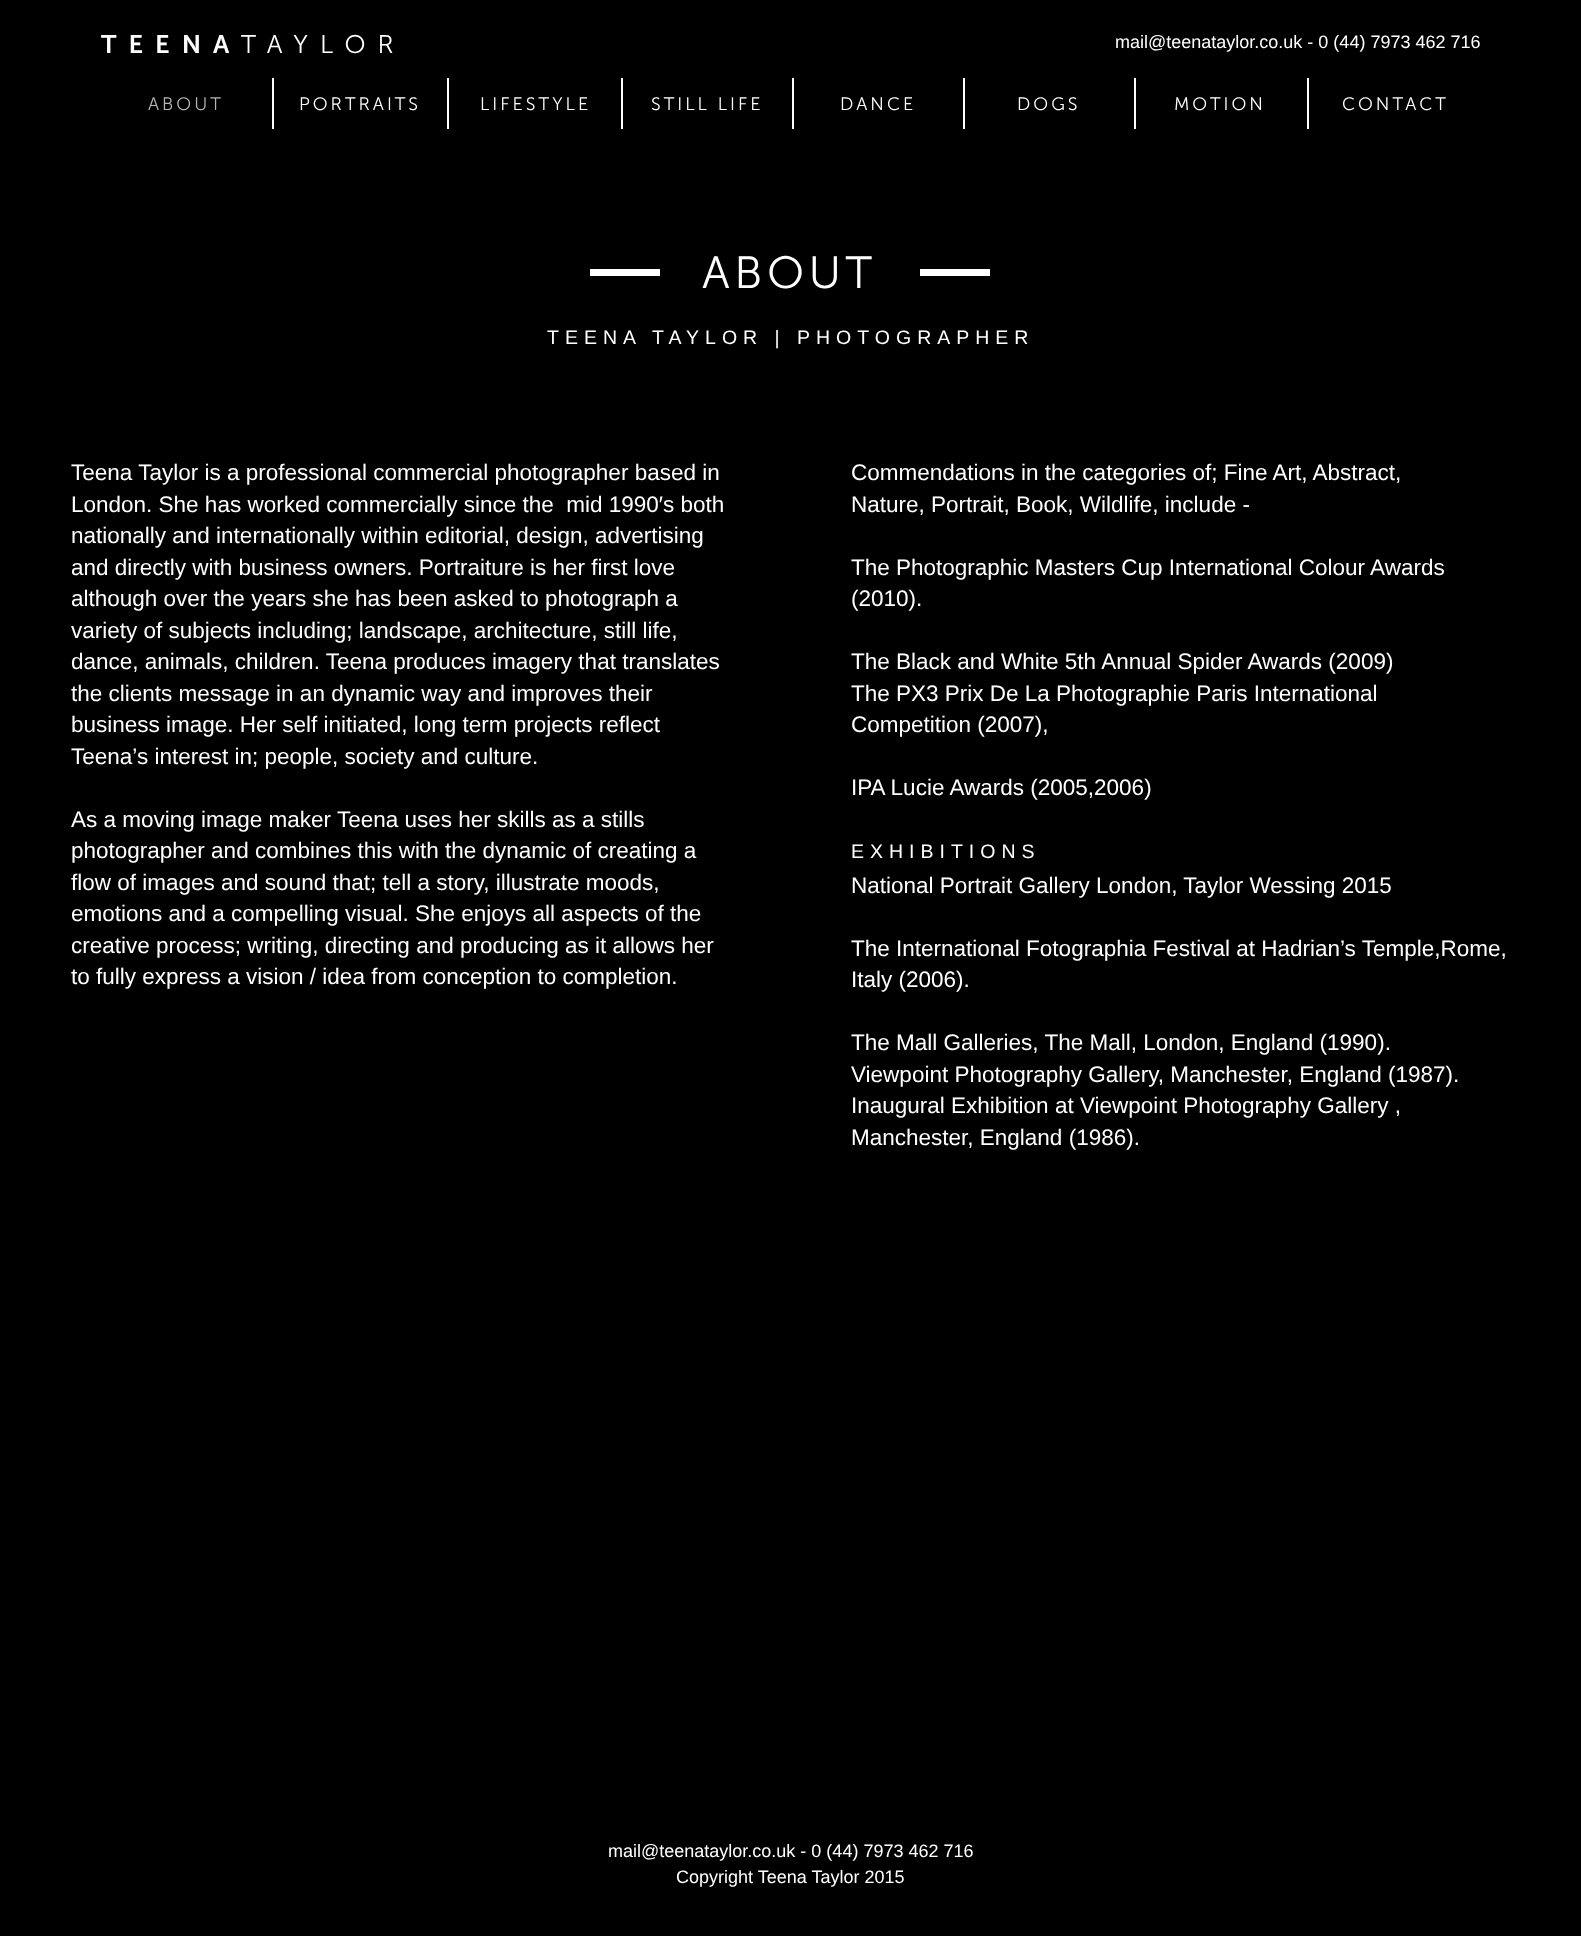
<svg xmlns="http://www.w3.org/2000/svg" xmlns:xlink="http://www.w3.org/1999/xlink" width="1581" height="1936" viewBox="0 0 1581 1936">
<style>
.cls-1{font:600 25.5px Museo Sans;letter-spacing:12px;fill:#ffffff}
.cls-2{font:300 25.5px Museo Sans;letter-spacing:12px;fill:#ffffff}
.cls-3{font:18px Liberation Sans;fill:#ffffff}
.cls-4{font:300 18px Museo Sans;letter-spacing:3px;fill:#b5b5b5}
.cls-5{font:300 18px Museo Sans;letter-spacing:3px;fill:#ffffff}
.cls-6{font:300 45px Museo Sans;letter-spacing:4.5px;fill:#ffffff}
.cls-7{font:19.5px Liberation Sans;letter-spacing:6px;fill:#ffffff}
.cls-8{font:22.5px Liberation Sans;fill:#ffffff}
</style>
<rect width="100%" height="100%" fill="#000000"/>
<rect fill="#ffffff" x="272" y="78" width="2" height="51"/>
<rect fill="#ffffff" x="447" y="78" width="2" height="51"/>
<rect fill="#ffffff" x="621" y="78" width="2" height="51"/>
<rect fill="#ffffff" x="792" y="78" width="2" height="51"/>
<rect fill="#ffffff" x="963" y="78" width="2" height="51"/>
<rect fill="#ffffff" x="1134" y="78" width="2" height="51"/>
<rect fill="#ffffff" x="1307" y="78" width="2" height="51"/>
<rect fill="#ffffff" x="590" y="269" width="70" height="7"/>
<rect fill="#ffffff" x="920" y="269" width="70" height="7"/>
<text class="cls-1" x="101" y="53">TEENA</text>
<text class="cls-2" x="241" y="53">TAYLOR</text>
<text class="cls-3" x="1115" y="48">mail@teenataylor.co.uk - 0 (44) 7973 462 716</text>
<text class="cls-4" x="148" y="110">ABOUT</text>
<text class="cls-5" x="299" y="110">PORTRAITS</text>
<text class="cls-5" x="480" y="110">LIFESTYLE</text>
<text class="cls-5" x="651" y="110">STILL LIFE</text>
<text class="cls-5" x="840" y="110">DANCE</text>
<text class="cls-5" x="1017" y="110">DOGS</text>
<text class="cls-5" x="1174" y="110">MOTION</text>
<text class="cls-5" x="1342" y="110">CONTACT</text>
<text class="cls-6" x="702" y="288">ABOUT</text>
<text class="cls-7" x="547" y="344">TEENA TAYLOR | PHOTOGRAPHER</text>
<text class="cls-8" xml:space="preserve"><tspan x="71" y="480">Teena Taylor is a professional commercial photographer based in</tspan><tspan x="71" y="512">London. She has worked commercially since the  mid 1990′s both</tspan><tspan x="71" y="543">nationally and internationally within editorial, design, advertising</tspan><tspan x="71" y="575">and directly with business owners. Portraiture is her first love</tspan><tspan x="71" y="606">although over the years she has been asked to photograph a</tspan><tspan x="71" y="638">variety of subjects including; landscape, architecture, still life,</tspan><tspan x="71" y="669">dance, animals, children. Teena produces imagery that translates</tspan><tspan x="71" y="701">the clients message in an dynamic way and improves their</tspan><tspan x="71" y="732">business image. Her self initiated, long term projects reflect</tspan><tspan x="71" y="764">Teena’s interest in; people, society and culture.</tspan></text>
<text class="cls-8"><tspan x="71" y="827">As a moving image maker Teena uses her skills as a stills</tspan><tspan x="71" y="858">photographer and combines this with the dynamic of creating a</tspan><tspan x="71" y="890">flow of images and sound that; tell a story, illustrate moods,</tspan><tspan x="71" y="921">emotions and a compelling visual. She enjoys all aspects of the</tspan><tspan x="71" y="953">creative process; writing, directing and producing as it allows her</tspan><tspan x="71" y="984">to fully express a vision / idea from conception to completion.</tspan></text>
<text class="cls-8"><tspan x="851" y="480">Commendations in the categories of; Fine Art, Abstract,</tspan><tspan x="851" y="512">Nature, Portrait, Book, Wildlife, include -</tspan></text>
<text class="cls-8"><tspan x="851" y="575">The Photographic Masters Cup International Colour Awards</tspan><tspan x="851" y="606">(2010).</tspan></text>
<text class="cls-8"><tspan x="851" y="669">The Black and White 5th Annual Spider Awards (2009)</tspan><tspan x="851" y="701">The PX3 Prix De La Photographie Paris International</tspan><tspan x="851" y="732">Competition (2007),</tspan></text>
<text class="cls-8" x="851" y="795">IPA Lucie Awards (2005,2006)</text>
<text class="cls-7" x="851" y="858">EXHIBITIONS</text>
<text class="cls-8" x="851" y="893">National Portrait Gallery London, Taylor Wessing 2015</text>
<text class="cls-8"><tspan x="851" y="956">The International Fotographia Festival at Hadrian’s Temple,Rome,</tspan><tspan x="851" y="987">Italy (2006).</tspan></text>
<text class="cls-8"><tspan x="851" y="1050">The Mall Galleries, The Mall, London, England (1990).</tspan><tspan x="851" y="1082">Viewpoint Photography Gallery, Manchester, England (1987).</tspan><tspan x="851" y="1113">Inaugural Exhibition at Viewpoint Photography Gallery ,</tspan><tspan x="851" y="1145">Manchester, England (1986).</tspan></text>
<text class="cls-3" x="608" y="1857">mail@teenataylor.co.uk - 0 (44) 7973 462 716</text>
<text class="cls-3" x="676" y="1883">Copyright Teena Taylor 2015</text>
</svg>
